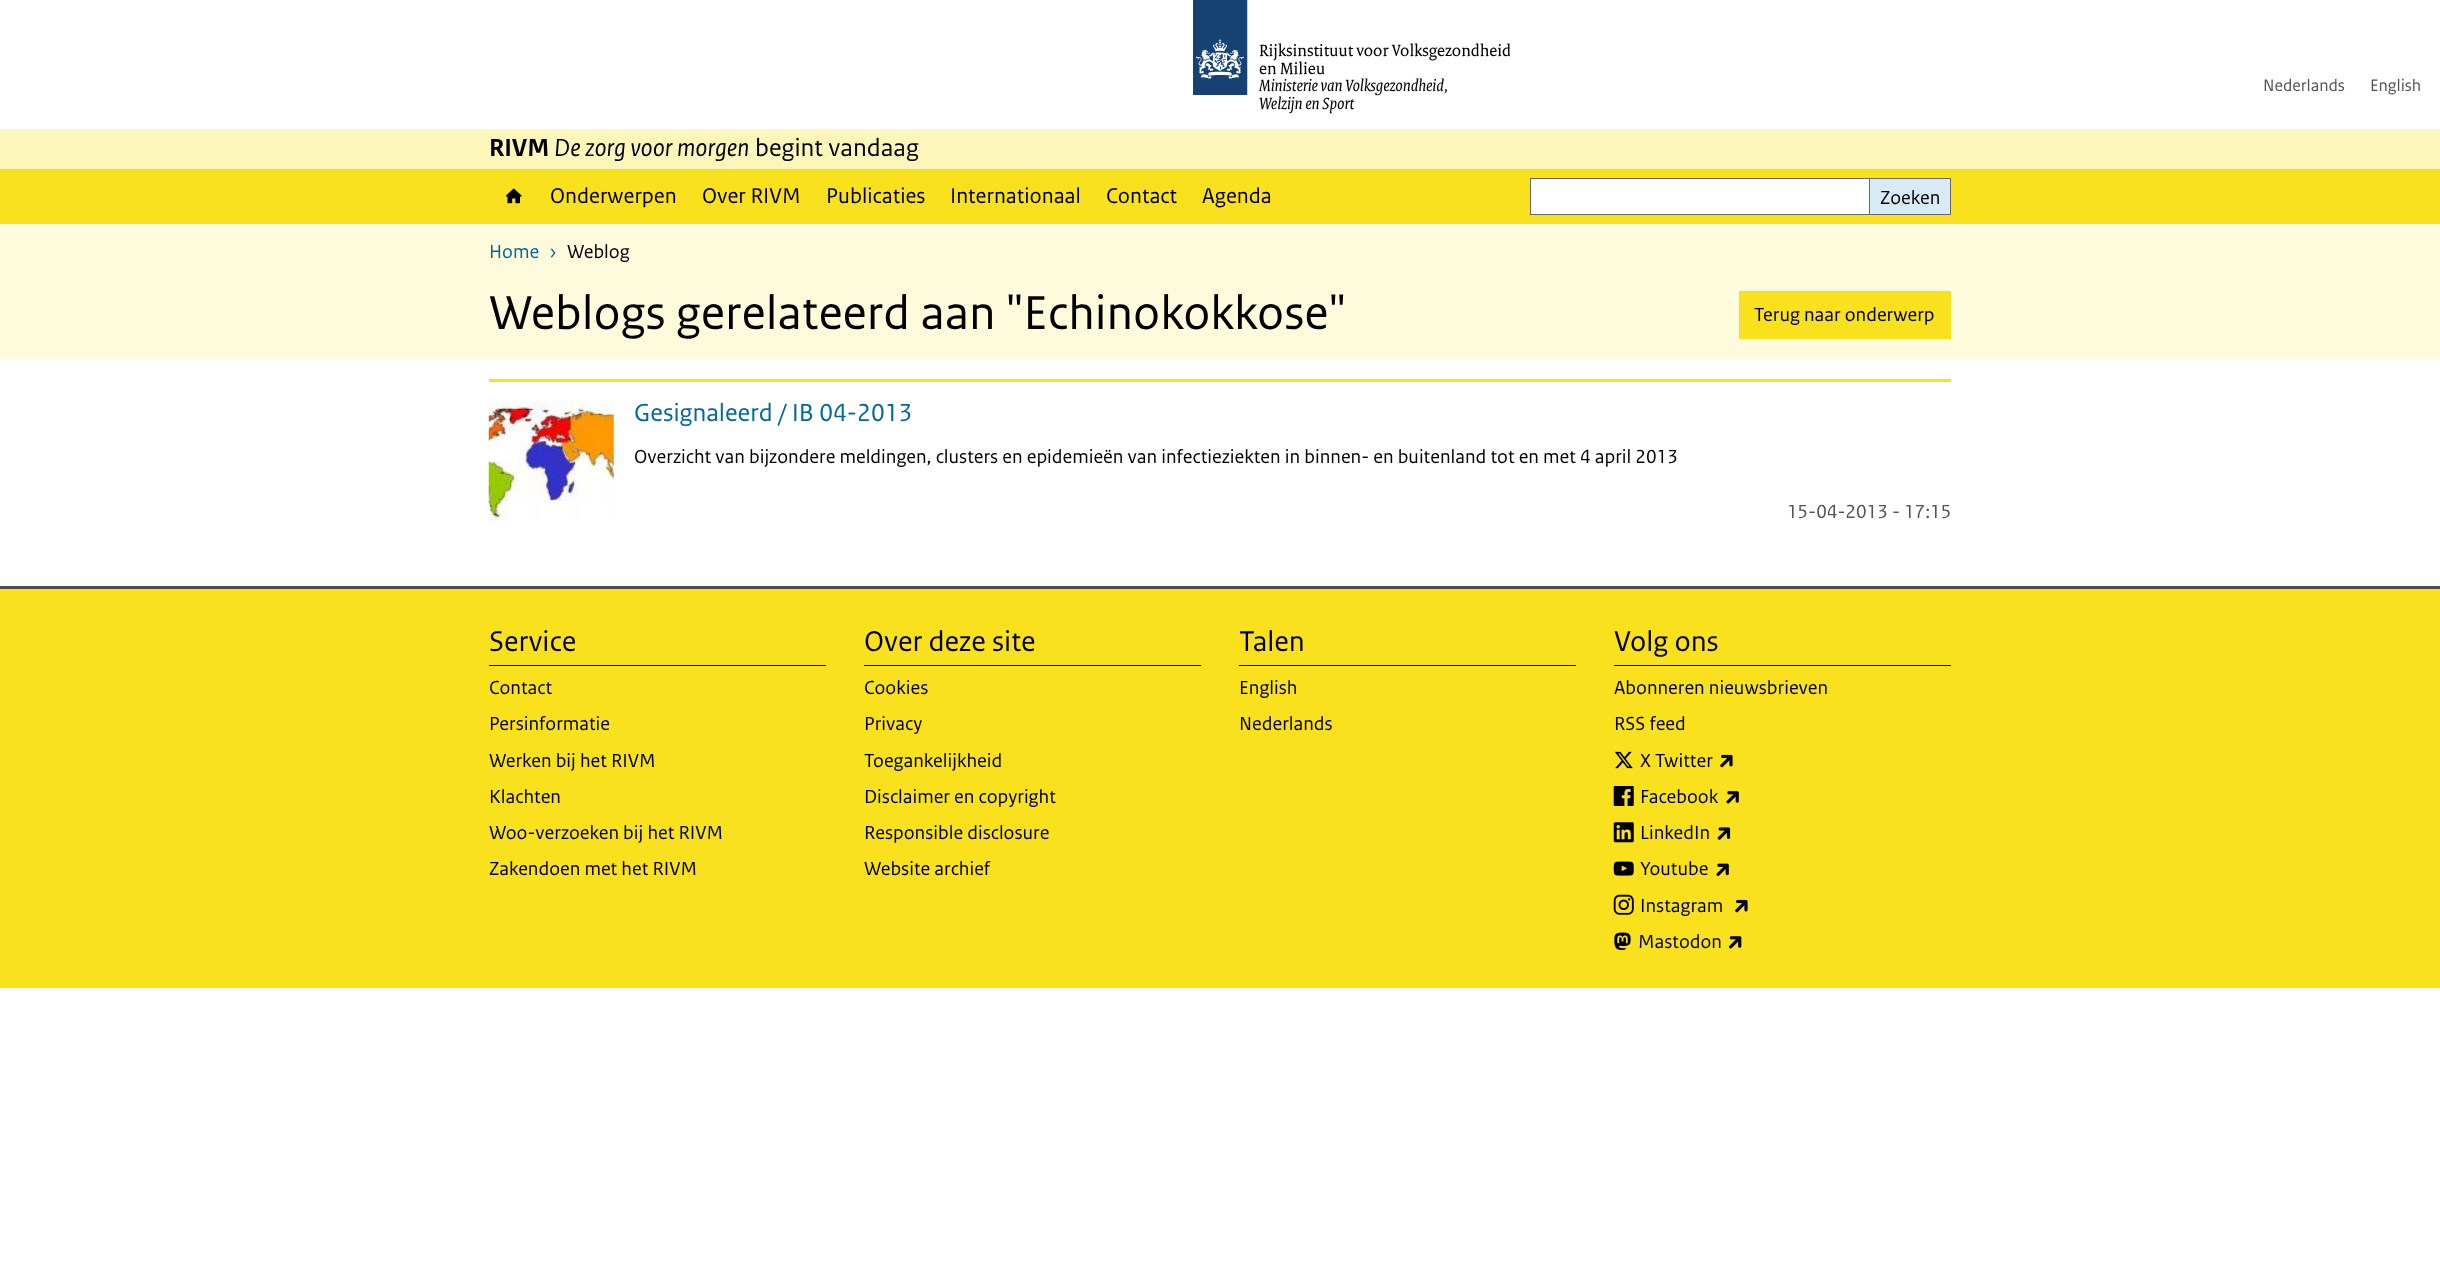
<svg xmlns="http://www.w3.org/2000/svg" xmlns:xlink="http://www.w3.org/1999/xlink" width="2440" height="1271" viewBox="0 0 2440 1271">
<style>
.cls-1{font:17.5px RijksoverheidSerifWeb;fill:#000000}
.cls-2{font:italic 17.5px RijksoverheidSerifWeb;fill:#000000}
.cls-3{font:17.5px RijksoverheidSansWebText;fill:#535353}
.cls-4{font:bold 26px RijksoverheidSansWebText;fill:#000000}
.cls-5{font:italic 26px RijksoverheidSansWebText;fill:#000000}
.cls-6{font:26px RijksoverheidSansWebText;fill:#000000}
.cls-7{font:22.5px RijksoverheidSansWebText;fill:#000000}
.cls-8{font:20px RijksoverheidSansWebText;fill:#000000}
.cls-9{font:20px RijksoverheidSansWebText;fill:#01689b}
.cls-10{font:50px RijksoverheidSansWebText;fill:#000000}
.cls-11{font:26px RijksoverheidSansWebText;fill:#01689b}
.cls-12{font:20px RijksoverheidSansWebText;fill:#535353}
.cls-13{font:30px RijksoverheidSansWebText;fill:#000000}
</style>
<rect width="100%" height="100%" fill="#ffffff"/>
<image xlink:href="image0.png" x="1193" y="0" width="55" height="95"/>
<rect fill="#fdf6bb" x="0" y="129" width="2440" height="40"/>
<rect fill="#f9e11e" x="0" y="169" width="2440" height="55"/>
<image xlink:href="image1.png" x="505" y="188" width="17" height="16"/>
<rect fill="#ffffff" stroke="#696969" x="1530.5" y="178.5" width="339" height="36"/>
<rect fill="#d9ebf7" x="1870" y="179" width="80" height="35"/>
<rect fill="#696969" x="1870" y="178" width="81" height="1"/>
<rect fill="#696969" x="1950" y="178" width="1" height="37"/>
<rect fill="#696969" x="1870" y="214" width="81" height="1"/>
<rect fill="#fefbdd" x="0" y="224" width="2440" height="135"/>
<rect fill="#f9e11e" x="1739" y="291" width="212" height="48"/>
<rect fill="#f9e11e" x="489" y="379" width="1462" height="3"/>
<image xlink:href="image2.png" x="488" y="401" width="126" height="121"/>
<rect fill="#f9e11e" x="0" y="589" width="2440" height="399"/>
<rect fill="#4e4e4e" x="0" y="586" width="2440" height="3"/>
<rect fill="#000000" x="489" y="665" width="337" height="1"/>
<rect fill="#000000" x="864" y="665" width="337" height="1"/>
<rect fill="#000000" x="1239" y="665" width="337" height="1"/>
<rect fill="#000000" x="1614" y="665" width="337" height="1"/>
<image xlink:href="image3.png" x="1615" y="751" width="18" height="18"/>
<image xlink:href="image4.png" x="1720" y="754" width="13" height="14"/>
<image xlink:href="image5.png" x="1613" y="786" width="21" height="20"/>
<image xlink:href="image6.png" x="1726" y="791" width="13" height="13"/>
<image xlink:href="image7.png" x="1613" y="822" width="21" height="21"/>
<image xlink:href="image8.png" x="1717" y="827" width="14" height="13"/>
<image xlink:href="image9.png" x="1613" y="861" width="21" height="15"/>
<image xlink:href="image10.png" x="1716" y="863" width="13" height="13"/>
<image xlink:href="image11.png" x="1613" y="894" width="21" height="21"/>
<image xlink:href="image4.png" x="1735" y="899" width="13" height="14"/>
<image xlink:href="image12.png" x="1614" y="932" width="17" height="18"/>
<image xlink:href="image13.png" x="1728" y="936" width="14" height="13"/>
<text class="cls-1"><tspan x="1259" y="56">Rijksinstituut voor Volksgezondheid</tspan><tspan x="1259" y="74">en Milieu</tspan></text>
<text class="cls-2"><tspan x="1259" y="91">Ministerie van Volksgezondheid,</tspan><tspan x="1259" y="109">Welzijn en Sport</tspan></text>
<text class="cls-3" x="2263" y="91">Nederlands</text>
<text class="cls-3" x="2370" y="91">English</text>
<text class="cls-4" x="489" y="156">RIVM</text>
<text class="cls-5" x="554" y="156">De zorg voor morgen</text>
<text class="cls-6" x="755" y="156">begint vandaag</text>
<text class="cls-7" x="550" y="203">Onderwerpen</text>
<text class="cls-7" x="702" y="203">Over RIVM</text>
<text class="cls-7" x="826" y="203">Publicaties</text>
<text class="cls-7" x="950" y="203">Internationaal</text>
<text class="cls-7" x="1106" y="203">Contact</text>
<text class="cls-7" x="1202" y="203">Agenda</text>
<text class="cls-8" x="1880" y="204">Zoeken</text>
<text class="cls-9" x="489" y="258">Home</text>
<text class="cls-9" x="549" y="258">›</text>
<text class="cls-8" x="567" y="258">Weblog</text>
<text class="cls-10" x="489" y="329">Weblogs gerelateerd aan "Echinokokkose"</text>
<text class="cls-8" x="1754" y="321">Terug naar onderwerp</text>
<text class="cls-11" x="634" y="421">Gesignaleerd / IB 04-2013</text>
<text class="cls-8" x="634" y="463">Overzicht van bijzondere meldingen, clusters en epidemieën van infectieziekten in binnen- en buitenland tot en met 4 april 2013</text>
<text class="cls-12" x="1787" y="518">15-04-2013 - 17:15</text>
<text class="cls-13" x="489" y="651">Service</text>
<text class="cls-8"><tspan x="489" y="694">Contact</tspan><tspan x="489" y="730">Persinformatie</tspan><tspan x="489" y="767">Werken bij het RIVM</tspan><tspan x="489" y="803">Klachten</tspan><tspan x="489" y="839">Woo-verzoeken bij het RIVM</tspan><tspan x="489" y="875">Zakendoen met het RIVM</tspan></text>
<text class="cls-13" x="864" y="651">Over deze site</text>
<text class="cls-8"><tspan x="864" y="694">Cookies</tspan><tspan x="864" y="730">Privacy</tspan><tspan x="864" y="767">Toegankelijkheid</tspan><tspan x="864" y="803">Disclaimer en copyright</tspan><tspan x="864" y="839">Responsible disclosure</tspan><tspan x="864" y="875">Website archief</tspan></text>
<text class="cls-13" x="1239" y="651">Talen</text>
<text class="cls-8"><tspan x="1239" y="694">English</tspan><tspan x="1239" y="730">Nederlands</tspan></text>
<text class="cls-13" x="1614" y="651">Volg ons</text>
<text class="cls-8"><tspan x="1614" y="694">Abonneren nieuwsbrieven</tspan><tspan x="1614" y="730">RSS feed</tspan></text>
<text class="cls-8"><tspan x="1640" y="767">X Twitter</tspan><tspan x="1640" y="803">Facebook</tspan><tspan x="1640" y="839">LinkedIn</tspan><tspan x="1640" y="875">Youtube</tspan><tspan x="1640" y="912">Instagram</tspan></text>
<text class="cls-8" x="1638" y="948">Mastodon</text>
</svg>
